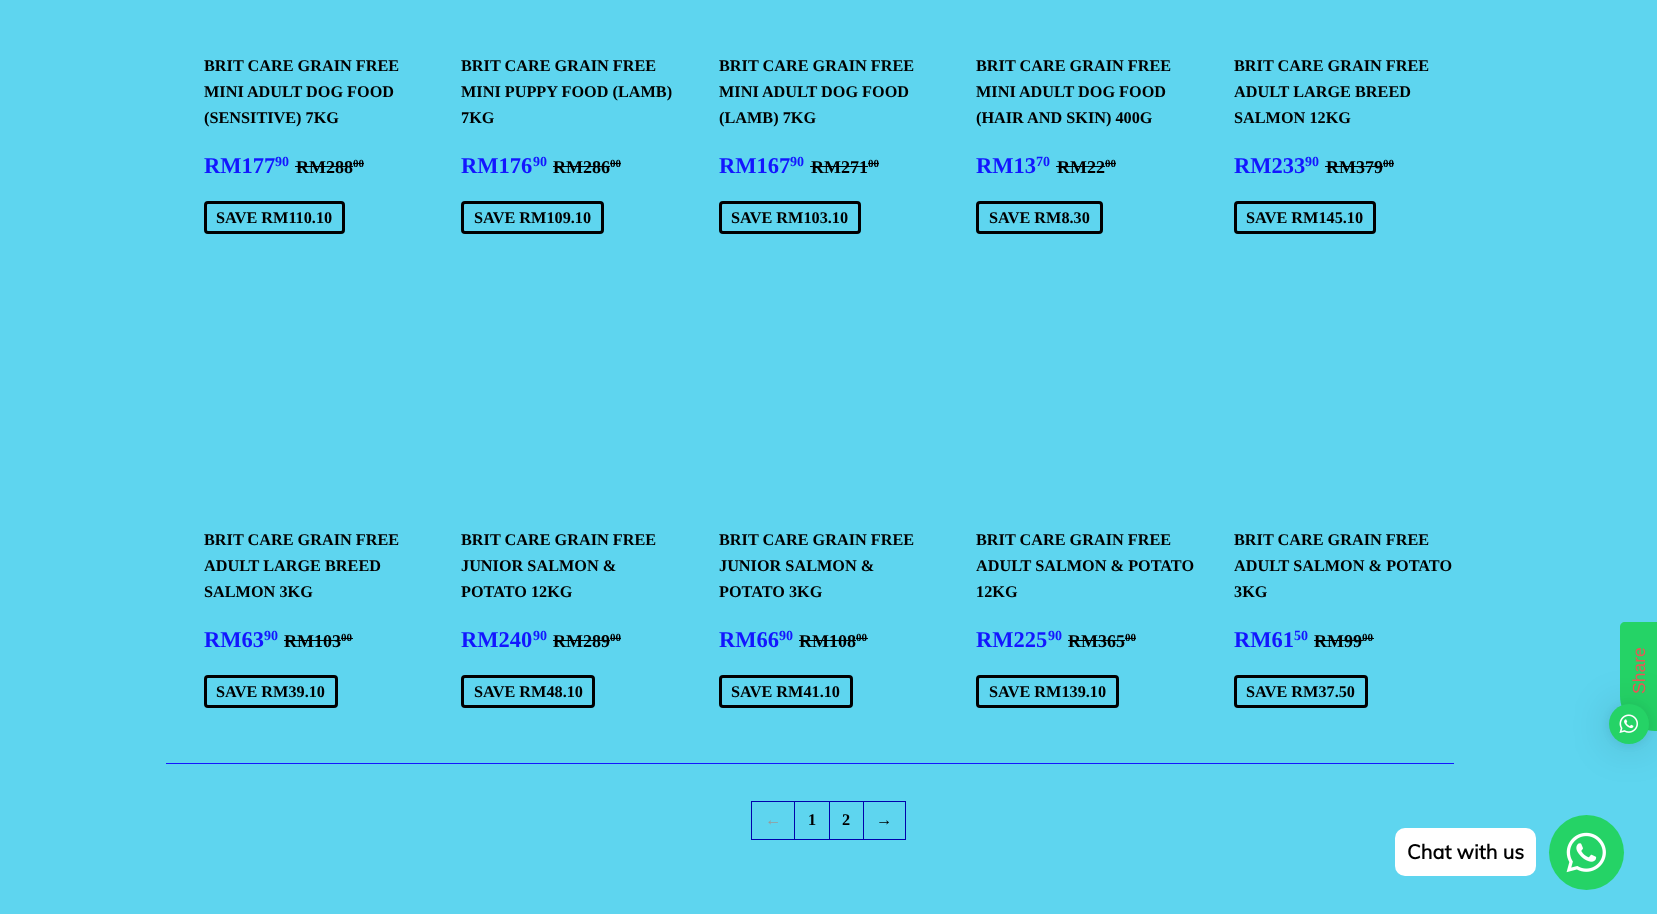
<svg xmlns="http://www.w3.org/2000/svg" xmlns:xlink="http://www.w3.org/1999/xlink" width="1657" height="914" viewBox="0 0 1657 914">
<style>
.cls-1{font:bold 16.25px Liberation Serif;fill:#000000}
.cls-2{font:bold 22.5px Liberation Serif;fill:#1316ff}
.cls-3{font:bold 14px Liberation Serif;fill:#1316ff}
.cls-4{font:bold 18px Liberation Serif;fill:#000000}
.cls-5{font:bold 11px Liberation Serif;fill:#000000}
.cls-6{font:bold 16.25px Liberation Serif;fill:#999999}
.cls-7{font:17.5px Liberation Sans;fill:#e85756}
.cls-8{font:bold 20px Muli;fill:#000000}
</style>
<rect width="100%" height="100%" fill="#5ed5ef"/>
<rect fill="#000000" x="295" y="166" width="58" height="1"/>
<rect fill="#000000" x="353" y="163" width="11" height="1"/>
<rect fill="none" stroke="#000000" stroke-width="3" x="205.5" y="202.5" width="138" height="30" rx="2.5"/>
<rect fill="#000000" x="553" y="166" width="57" height="1"/>
<rect fill="#000000" x="610" y="163" width="11" height="1"/>
<rect fill="none" stroke="#000000" stroke-width="3" x="462.5" y="202.5" width="140" height="30" rx="2.5"/>
<rect fill="#000000" x="810" y="166" width="58" height="1"/>
<rect fill="#000000" x="868" y="163" width="11" height="1"/>
<rect fill="none" stroke="#000000" stroke-width="3" x="720.5" y="202.5" width="139" height="30" rx="2.5"/>
<rect fill="#000000" x="1056" y="166" width="49" height="1"/>
<rect fill="#000000" x="1105" y="163" width="11" height="1"/>
<rect fill="none" stroke="#000000" stroke-width="3" x="977.5" y="202.5" width="124" height="30" rx="2.5"/>
<rect fill="#000000" x="1325" y="166" width="58" height="1"/>
<rect fill="#000000" x="1383" y="163" width="11" height="1"/>
<rect fill="none" stroke="#000000" stroke-width="3" x="1235.5" y="202.5" width="139" height="30" rx="2.5"/>
<rect fill="#000000" x="284" y="640" width="57" height="1"/>
<rect fill="#000000" x="341" y="638" width="12" height="1"/>
<rect fill="none" stroke="#000000" stroke-width="3" x="205.5" y="676.5" width="131" height="30" rx="2.5"/>
<rect fill="#000000" x="553" y="640" width="57" height="1"/>
<rect fill="#000000" x="610" y="638" width="11" height="1"/>
<rect fill="none" stroke="#000000" stroke-width="3" x="462.5" y="676.5" width="131" height="30" rx="2.5"/>
<rect fill="#000000" x="799" y="640" width="57" height="1"/>
<rect fill="#000000" x="856" y="638" width="12" height="1"/>
<rect fill="none" stroke="#000000" stroke-width="3" x="720.5" y="676.5" width="131" height="30" rx="2.5"/>
<rect fill="#000000" x="1068" y="640" width="57" height="1"/>
<rect fill="#000000" x="1125" y="638" width="11" height="1"/>
<rect fill="none" stroke="#000000" stroke-width="3" x="977.5" y="676.5" width="140" height="30" rx="2.5"/>
<rect fill="#000000" x="1314" y="640" width="49" height="1"/>
<rect fill="#000000" x="1363" y="638" width="11" height="1"/>
<rect fill="none" stroke="#000000" stroke-width="3" x="1235.5" y="676.5" width="131" height="30" rx="2.5"/>
<rect fill="#1316ff" x="166" y="763" width="1288" height="1"/>
<rect fill="none" stroke="#0002ac" x="751.5" y="801.5" width="43" height="38"/>
<rect fill="none" stroke="#0002ac" x="829.5" y="801.5" width="34" height="38"/>
<rect fill="none" stroke="#0002ac" x="794.5" y="801.5" width="35" height="38"/>
<rect fill="none" stroke="#0002ac" x="863.5" y="801.5" width="42" height="38"/>
<path fill="#25d366" d="M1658 622V731H1655C1636 731 1620 715 1620 696V627C1620 624 1622 622 1625 622Z"/>
<rect fill="#000000" fill-opacity="0.16" filter="blur(20px)" x="1609" y="706" width="40" height="40" rx="20"/>
<rect fill="#000000" fill-opacity="0.06" filter="blur(4px)" x="1609" y="705" width="40" height="40" rx="20"/>
<circle fill="#25d366" cx="1629" cy="724" r="20"/>
<image xlink:href="image0.png" x="1619" y="714" width="19" height="19"/>
<circle fill="#25d366" cx="1586.5" cy="852.5" r="37.5"/>
<rect fill="#ffffff" x="1395" y="828" width="141" height="48" rx="10"/>
<image xlink:href="image1.png" x="1566" y="832" width="40" height="41"/>
<text class="cls-1"><tspan x="204" y="71">BRIT CARE GRAIN FREE</tspan><tspan x="204" y="97">MINI ADULT DOG FOOD</tspan><tspan x="204" y="123">(SENSITIVE) 7KG</tspan></text>
<text class="cls-2" x="204" y="173">RM177</text>
<text class="cls-3" x="275" y="166">90</text>
<text class="cls-4" x="296" y="173">RM288</text>
<text class="cls-5" x="353" y="167">00</text>
<text class="cls-1" x="216" y="223">SAVE RM110.10</text>
<text class="cls-1"><tspan x="461" y="71">BRIT CARE GRAIN FREE</tspan><tspan x="461" y="97">MINI PUPPY FOOD (LAMB)</tspan><tspan x="461" y="123">7KG</tspan></text>
<text class="cls-2" x="461" y="173">RM176</text>
<text class="cls-3" x="533" y="166">90</text>
<text class="cls-4" x="553" y="173">RM286</text>
<text class="cls-5" x="610" y="167">00</text>
<text class="cls-1" x="474" y="223">SAVE RM109.10</text>
<text class="cls-1"><tspan x="719" y="71">BRIT CARE GRAIN FREE</tspan><tspan x="719" y="97">MINI ADULT DOG FOOD</tspan><tspan x="719" y="123">(LAMB) 7KG</tspan></text>
<text class="cls-2" x="719" y="173">RM167</text>
<text class="cls-3" x="790" y="166">90</text>
<text class="cls-4" x="811" y="173">RM271</text>
<text class="cls-5" x="868" y="167">00</text>
<text class="cls-1" x="731" y="223">SAVE RM103.10</text>
<text class="cls-1"><tspan x="976" y="71">BRIT CARE GRAIN FREE</tspan><tspan x="976" y="97">MINI ADULT DOG FOOD</tspan><tspan x="976" y="123">(HAIR AND SKIN) 400G</tspan></text>
<text class="cls-2" x="976" y="173">RM13</text>
<text class="cls-3" x="1036" y="166">70</text>
<text class="cls-4" x="1057" y="173">RM22</text>
<text class="cls-5" x="1105" y="167">00</text>
<text class="cls-1" x="989" y="223">SAVE RM8.30</text>
<text class="cls-1"><tspan x="1234" y="71">BRIT CARE GRAIN FREE</tspan><tspan x="1234" y="97">ADULT LARGE BREED</tspan><tspan x="1234" y="123">SALMON 12KG</tspan></text>
<text class="cls-2" x="1234" y="173">RM233</text>
<text class="cls-3" x="1305" y="166">90</text>
<text class="cls-4" x="1326" y="173">RM379</text>
<text class="cls-5" x="1383" y="167">00</text>
<text class="cls-1" x="1246" y="223">SAVE RM145.10</text>
<text class="cls-1"><tspan x="204" y="545">BRIT CARE GRAIN FREE</tspan><tspan x="204" y="571">ADULT LARGE BREED</tspan><tspan x="204" y="597">SALMON 3KG</tspan></text>
<text class="cls-2" x="204" y="647">RM63</text>
<text class="cls-3" x="264" y="640">90</text>
<text class="cls-4" x="284" y="647">RM103</text>
<text class="cls-5" x="341" y="641">00</text>
<text class="cls-1" x="216" y="697">SAVE RM39.10</text>
<text class="cls-1"><tspan x="461" y="545">BRIT CARE GRAIN FREE</tspan><tspan x="461" y="571">JUNIOR SALMON &amp;</tspan><tspan x="461" y="597">POTATO 12KG</tspan></text>
<text class="cls-2" x="461" y="647">RM240</text>
<text class="cls-3" x="533" y="640">90</text>
<text class="cls-4" x="553" y="647">RM289</text>
<text class="cls-5" x="610" y="641">00</text>
<text class="cls-1" x="474" y="697">SAVE RM48.10</text>
<text class="cls-1"><tspan x="719" y="545">BRIT CARE GRAIN FREE</tspan><tspan x="719" y="571">JUNIOR SALMON &amp;</tspan><tspan x="719" y="597">POTATO 3KG</tspan></text>
<text class="cls-2" x="719" y="647">RM66</text>
<text class="cls-3" x="779" y="640">90</text>
<text class="cls-4" x="799" y="647">RM108</text>
<text class="cls-5" x="856" y="641">00</text>
<text class="cls-1" x="731" y="697">SAVE RM41.10</text>
<text class="cls-1"><tspan x="976" y="545">BRIT CARE GRAIN FREE</tspan><tspan x="976" y="571">ADULT SALMON &amp; POTATO</tspan><tspan x="976" y="597">12KG</tspan></text>
<text class="cls-2" x="976" y="647">RM225</text>
<text class="cls-3" x="1048" y="640">90</text>
<text class="cls-4" x="1068" y="647">RM365</text>
<text class="cls-5" x="1125" y="641">00</text>
<text class="cls-1" x="989" y="697">SAVE RM139.10</text>
<text class="cls-1"><tspan x="1234" y="545">BRIT CARE GRAIN FREE</tspan><tspan x="1234" y="571">ADULT SALMON &amp; POTATO</tspan><tspan x="1234" y="597">3KG</tspan></text>
<text class="cls-2" x="1234" y="647">RM61</text>
<text class="cls-3" x="1294" y="640">50</text>
<text class="cls-4" x="1314" y="647">RM99</text>
<text class="cls-5" x="1362" y="641">00</text>
<text class="cls-1" x="1246" y="697">SAVE RM37.50</text>
<text class="cls-6" x="765" y="825">←</text>
<text class="cls-1" x="808" y="825">1</text>
<text class="cls-1" x="842" y="825">2</text>
<text class="cls-1" x="876" y="825">→</text>
<text class="cls-7" x="1645" y="694" transform="rotate(-90 1645 694)">Share</text>
<text class="cls-8" x="1407" y="859">Chat with us</text>
</svg>
